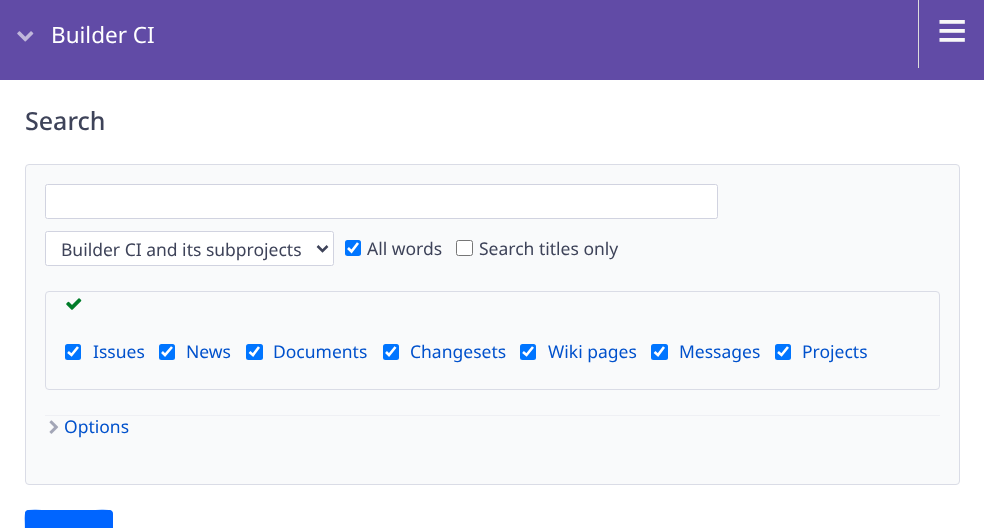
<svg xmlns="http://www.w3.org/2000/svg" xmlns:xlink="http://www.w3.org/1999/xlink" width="984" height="528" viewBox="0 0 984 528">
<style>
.cls-1{font:22.5px Noto Sans;fill:#ffffff}
.cls-2{font:52px Liberation Sans;fill:#f8f8f8}
.cls-3{font:500 25px Noto Sans;fill:#3e4359}
.cls-4{font:17.5px Noto Sans;fill:#3e4359}
.cls-5{font:17.5px Noto Sans;fill:#0051cc}
</style>
<rect width="100%" height="100%" fill="#ffffff"/>
<rect fill="#614ba6" x="0" y="0" width="984" height="80"/>
<image xlink:href="image0.png" x="17" y="31" width="17" height="11"/>
<rect fill="#dddddd" x="918" y="0" width="1" height="68"/>
<rect fill="#f9fafb" stroke="#dadce6" x="25.5" y="164.5" width="934" height="320" rx="3.5"/>
<rect fill="#ffffff" stroke="#d1d3e0" x="45.5" y="184.5" width="672" height="34" rx="2"/>
<rect fill="#ffffff" stroke="#d1d3e0" x="45.5" y="231.5" width="288" height="34" rx="2"/>
<path fill="none" stroke="#3e4359" stroke-width="2.5" d="M317.5 246L322.5 251L327.5 246"/>
<rect fill="#0075ff" x="345" y="240" width="16" height="16" rx="2.5"/>
<path fill="none" stroke="#ffffff" stroke-width="2.6" d="M348 248L351.5 251.5L358 243"/>
<rect fill="#ffffff" stroke="#767676" x="456.5" y="240.5" width="16" height="15" rx="2"/>
<rect fill="none" stroke="#dadce6" x="45.5" y="291.5" width="894" height="98" rx="3.5"/>
<image xlink:href="image1.png" x="66" y="298" width="16" height="12"/>
<rect fill="#0075ff" x="65" y="344" width="16" height="16" rx="2.5"/>
<path fill="none" stroke="#ffffff" stroke-width="2.6" d="M68 352L71.5 355L78 347"/>
<rect fill="#0075ff" x="159" y="344" width="16" height="16" rx="2.5"/>
<path fill="none" stroke="#ffffff" stroke-width="2.6" d="M162 352L165 355L172 347"/>
<rect fill="#0075ff" x="246" y="344" width="17" height="16" rx="2.5"/>
<path fill="none" stroke="#ffffff" stroke-width="2.6" d="M249.5 352L253 355L259 347"/>
<rect fill="#0075ff" x="383" y="344" width="16" height="16" rx="2.5"/>
<path fill="none" stroke="#ffffff" stroke-width="2.6" d="M386 352L389 355L395.5 347"/>
<rect fill="#0075ff" x="520" y="344" width="16" height="16" rx="2.5"/>
<path fill="none" stroke="#ffffff" stroke-width="2.6" d="M523 352L526.5 355L533 347"/>
<rect fill="#0075ff" x="651" y="344" width="17" height="16" rx="2.5"/>
<path fill="none" stroke="#ffffff" stroke-width="2.6" d="M654.5 352L658 355L664 347"/>
<rect fill="#0075ff" x="775" y="344" width="16" height="16" rx="2.5"/>
<path fill="none" stroke="#ffffff" stroke-width="2.6" d="M778 352L781.5 355L788 347"/>
<rect fill="#eff0f4" x="45" y="415" width="895" height="1"/>
<image xlink:href="image2.png" x="49" y="420" width="10" height="14"/>
<rect fill="#0065ff" x="25" y="510" width="88" height="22" rx="4"/>
<path fill="none" stroke="#0065ff" stroke-width="1.2" d="M26.5 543.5C24.5 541.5 25.5 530.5 25.5 527.5C25.5 508 22 510.5 42 510.5H95.5C115.5 510.5 112 508 112 527.5C112 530.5 113 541.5 111 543.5"/>
<text class="cls-1" x="51" y="43">Builder CI</text>
<text class="cls-2" x="937" y="48">≡</text>
<text class="cls-3" x="25" y="130">Search</text>
<text class="cls-4" x="61" y="256">Builder CI and its subprojects</text>
<text class="cls-4" x="367" y="255">All words</text>
<text class="cls-4" x="479" y="255">Search titles only</text>
<text class="cls-5" x="93" y="358">Issues</text>
<text class="cls-5" x="186" y="358">News</text>
<text class="cls-5" x="273" y="358">Documents</text>
<text class="cls-5" x="410" y="358">Changesets</text>
<text class="cls-5" x="548" y="358">Wiki pages</text>
<text class="cls-5" x="679" y="358">Messages</text>
<text class="cls-5" x="802" y="358">Projects</text>
<text class="cls-5" x="64" y="433">Options</text>
</svg>
